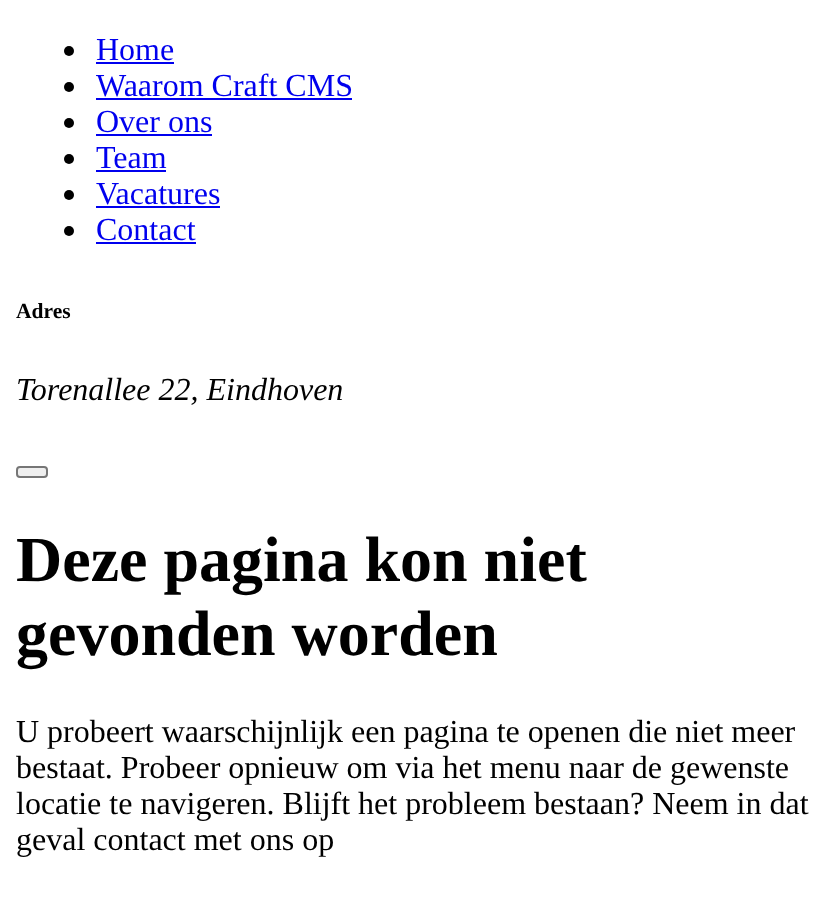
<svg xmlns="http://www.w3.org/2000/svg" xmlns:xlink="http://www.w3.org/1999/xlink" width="826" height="924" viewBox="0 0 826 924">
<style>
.cls-1{font:32px Liberation Serif;fill:#0000ee}
.cls-2{font:bold 21.5px Liberation Serif;fill:#000000}
.cls-3{font:italic 32px Liberation Serif;fill:#000000}
.cls-4{font:bold 64px Liberation Serif;fill:#000000}
.cls-5{font:32px Liberation Serif;fill:#000000}
</style>
<rect width="100%" height="100%" fill="#ffffff"/>
<circle fill="#000000" cx="69" cy="51" r="5"/>
<rect fill="#0000ee" x="96" y="62" width="78" height="2"/>
<circle fill="#000000" cx="69" cy="87" r="5"/>
<rect fill="#0000ee" x="96" y="98" width="256" height="2"/>
<circle fill="#000000" cx="69" cy="123" r="5"/>
<rect fill="#0000ee" x="96" y="134" width="116" height="2"/>
<circle fill="#000000" cx="69" cy="159" r="5"/>
<rect fill="#0000ee" x="96" y="170" width="70" height="2"/>
<circle fill="#000000" cx="69" cy="195" r="5"/>
<rect fill="#0000ee" x="96" y="206" width="124" height="2"/>
<circle fill="#000000" cx="69" cy="231" r="5"/>
<rect fill="#0000ee" x="96" y="242" width="100" height="2"/>
<rect fill="#efefef" stroke="#767676" stroke-width="2" x="17" y="467" width="30" height="10" rx="3"/>
<text class="cls-1"><tspan x="96" y="60">Home</tspan><tspan x="96" y="96">Waarom Craft CMS</tspan><tspan x="96" y="132">Over ons</tspan><tspan x="96" y="168">Team</tspan><tspan x="96" y="204">Vacatures</tspan><tspan x="96" y="240">Contact</tspan></text>
<text class="cls-2" x="16" y="318">Adres</text>
<text class="cls-3" x="16" y="400">Torenallee 22, Eindhoven</text>
<text class="cls-4"><tspan x="16" y="581">Deze pagina kon niet</tspan><tspan x="16" y="655">gevonden worden</tspan></text>
<text class="cls-5"><tspan x="16" y="742">U probeert waarschijnlijk een pagina te openen die niet meer</tspan><tspan x="16" y="778">bestaat. Probeer opnieuw om via het menu naar de gewenste</tspan><tspan x="16" y="814">locatie te navigeren. Blijft het probleem bestaan? Neem in dat</tspan><tspan x="16" y="850">geval contact met ons op</tspan></text>
</svg>
